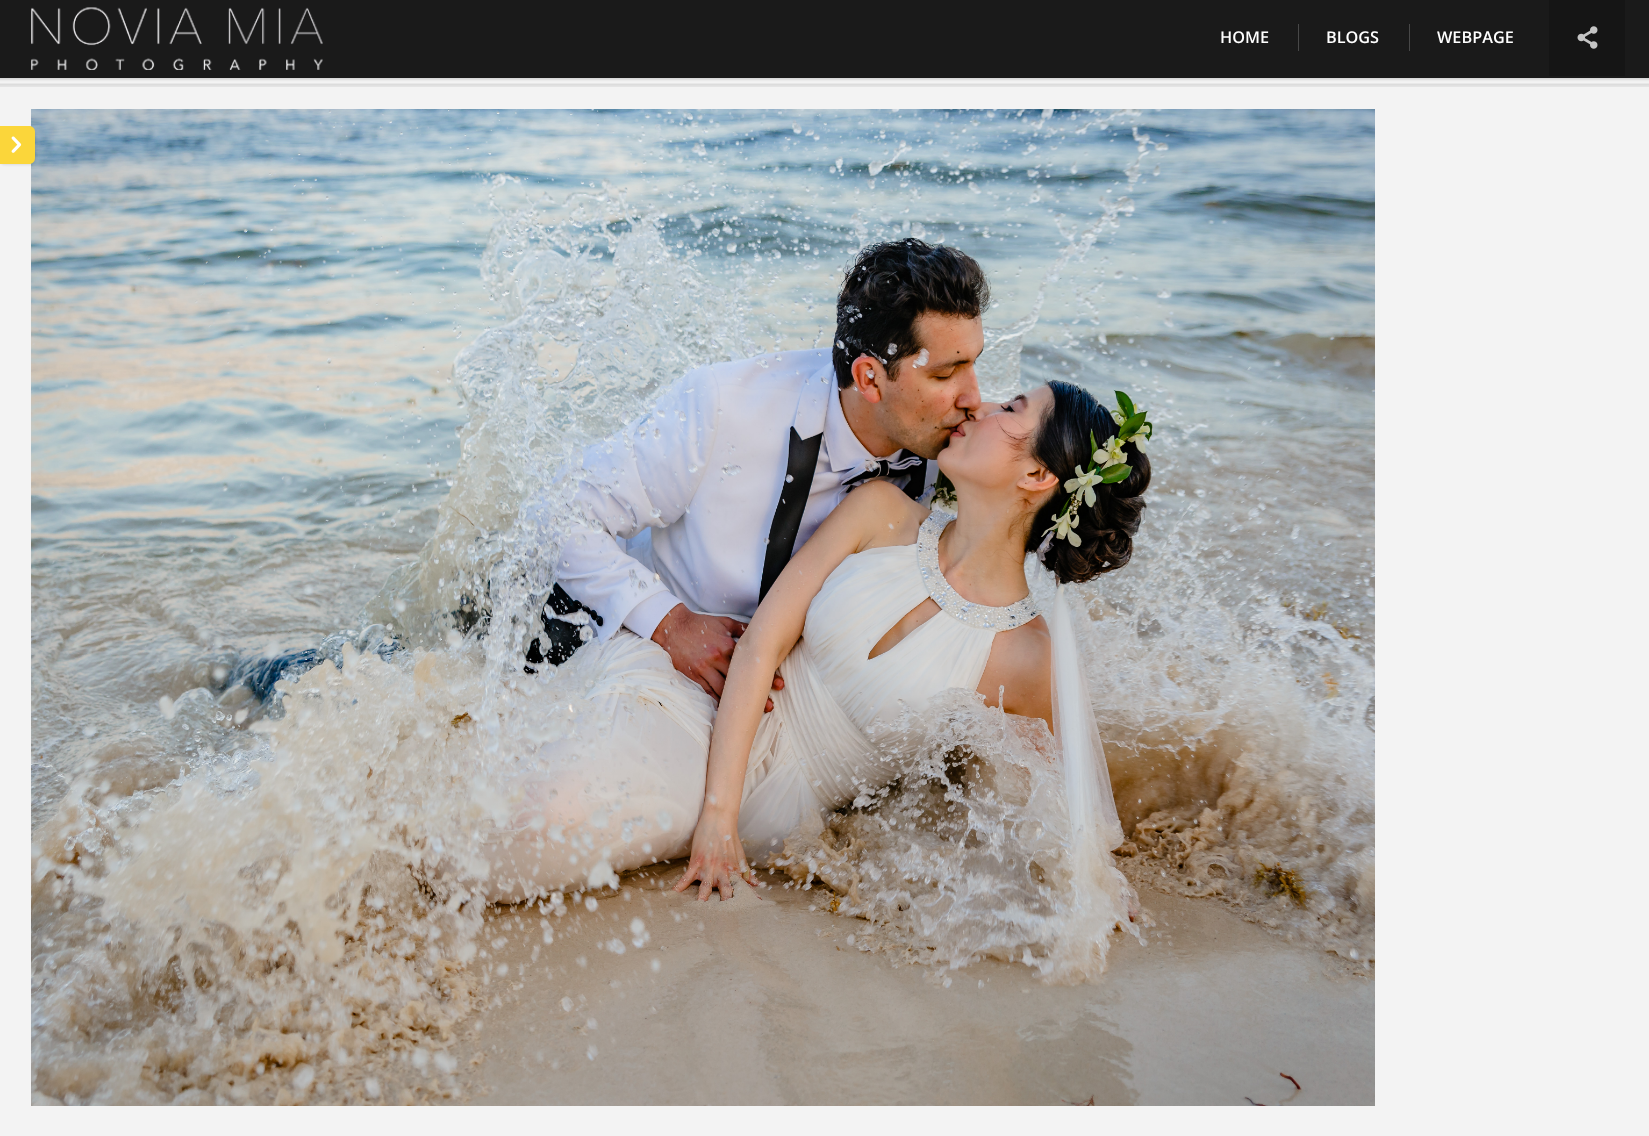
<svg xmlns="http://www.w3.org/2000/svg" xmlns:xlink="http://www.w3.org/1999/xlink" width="1649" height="1136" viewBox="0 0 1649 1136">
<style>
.cls-1{font:600 16.25px Open Sans;fill:#ffffff}
</style>
<rect width="100%" height="100%" fill="#f3f3f3"/>
<rect fill="#1a1a1a" x="0" y="0" width="1649" height="78"/>
<image xlink:href="image0.png" x="31" y="7" width="292" height="63"/>
<rect fill="#484848" x="1298" y="24" width="1" height="27"/>
<rect fill="#484848" x="1409" y="24" width="1" height="27"/>
<rect fill="#151515" x="1549" y="0" width="76" height="76"/>
<image xlink:href="image1.png" x="1577" y="26" width="21" height="23"/>
<image xlink:href="image2.png" x="0" y="78" width="1649" height="9"/>
<image xlink:href="image4.png" x="31" y="109" width="1344" height="997"/>
<rect fill="#323232" fill-opacity="0.12" filter="blur(1px)" x="-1" y="128" width="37" height="37" rx="6"/>
<path fill="#fbd63a" d="M0 126H29C32.5 126 35 128.5 35 132V158C35 161.5 32.5 164 29 164H0Z"/>
<image xlink:href="image3.png" x="11" y="136" width="11" height="17"/>
<text class="cls-1" x="1220" y="43">HOME</text>
<text class="cls-1" x="1326" y="43">BLOGS</text>
<text class="cls-1" x="1437" y="43">WEBPAGE</text>
</svg>
